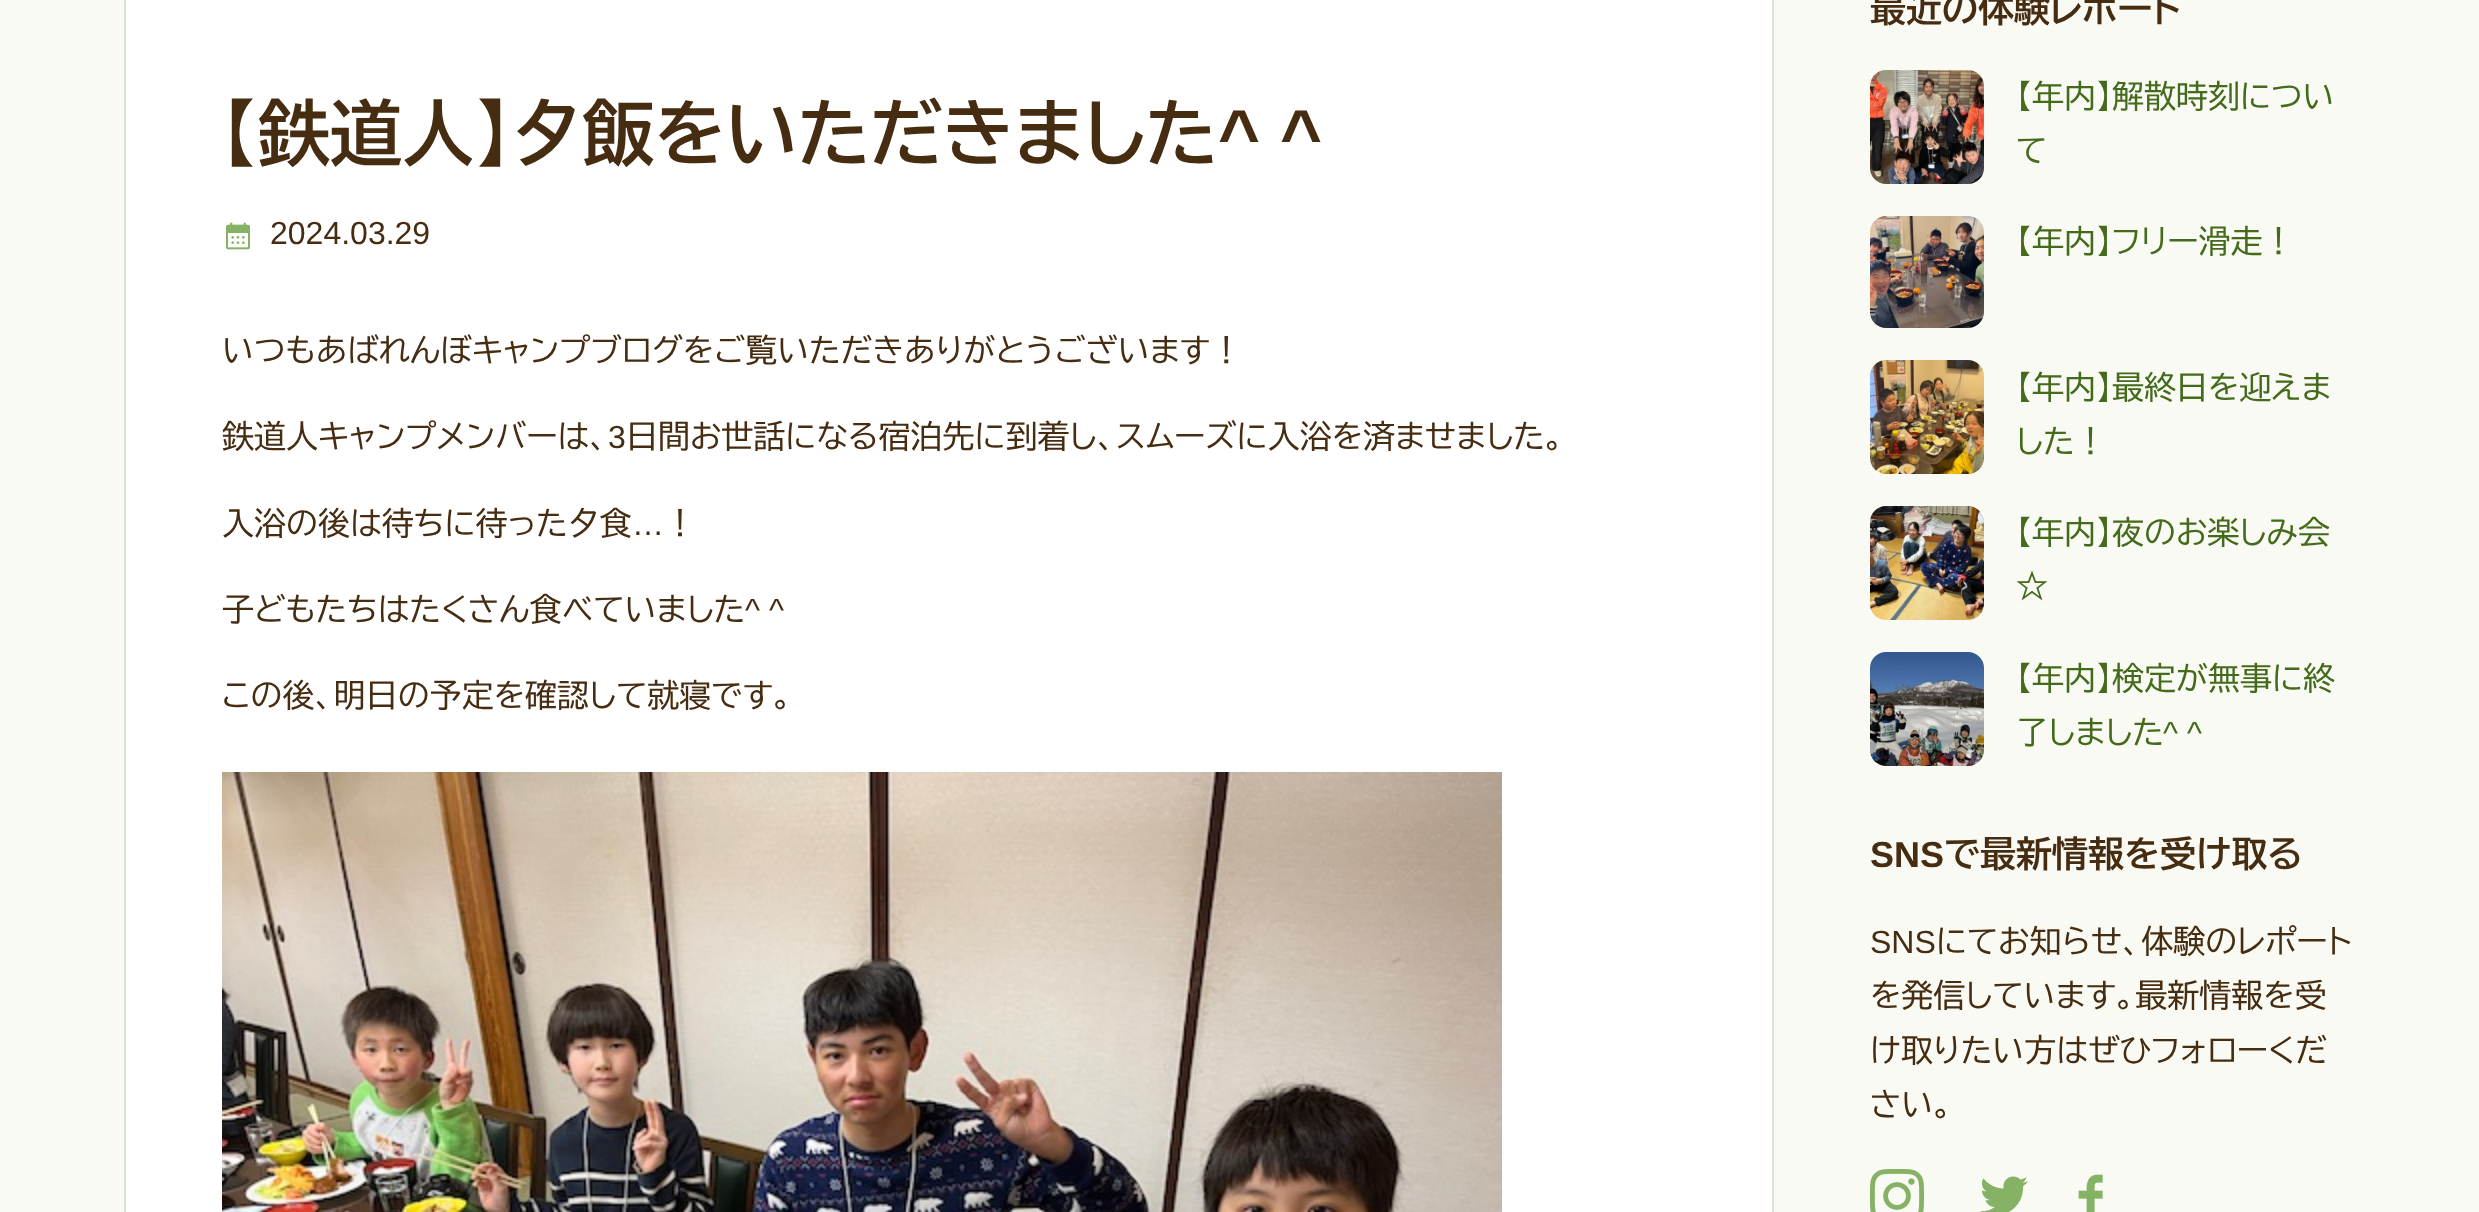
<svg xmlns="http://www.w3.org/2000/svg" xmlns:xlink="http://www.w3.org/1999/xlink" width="2479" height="1212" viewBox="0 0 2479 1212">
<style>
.cls-1{font:bold 72px BIZ UDPGothic;fill:#462c11}
.cls-2{font:bold 72px Liberation Sans;fill:#462c11}
.cls-3{font:32px Liberation Sans;fill:#462c11}
.cls-4{font:32px BIZ UDPGothic;fill:#462c11}
.cls-5{font:bold 36px BIZ UDPGothic;fill:#462c11}
.cls-6{font:32px BIZ UDPGothic;fill:#446a1b}
.cls-7{font:32px Liberation Sans;fill:#446a1b}
.cls-8{font:bold 36px Liberation Sans;fill:#462c11}
</style>
<rect width="100%" height="100%" fill="#f8faf3"/>
<rect fill="#ffffff" stroke="#dae6d5" stroke-width="2" x="125" y="-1" width="1648" height="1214"/>
<image xlink:href="image0.png" x="226" y="222" width="24" height="28"/>
<image xlink:href="image1.png" x="222" y="772" width="1280" height="440"/>
<image xlink:href="image2.png" x="1870" y="70" width="114" height="114"/>
<image xlink:href="image3.png" x="1870" y="216" width="114" height="112"/>
<image xlink:href="image4.png" x="1870" y="360" width="114" height="114"/>
<image xlink:href="image5.png" x="1870" y="506" width="114" height="114"/>
<image xlink:href="image6.png" x="1870" y="652" width="114" height="114"/>
<image xlink:href="image7.png" x="1870" y="1169" width="54" height="43"/>
<image xlink:href="image8.png" x="1980" y="1176" width="48" height="36"/>
<image xlink:href="image9.png" x="2078" y="1174" width="25" height="38"/>
<text class="cls-1" x="222" y="160">【鉄道人】夕飯をいただきました</text>
<text class="cls-2" x="1218" y="160">^ ^</text>
<text class="cls-3" x="270" y="244">2024.03.29</text>
<text class="cls-4" x="222" y="362">いつもあばれんぼキャンプブログをご覧いただきありがとうございます！</text>
<text class="cls-4" x="222" y="448">鉄道人キャンプメンバーは、</text>
<text class="cls-3" x="608" y="448">3</text>
<text class="cls-4" x="626" y="448">日間お世話になる宿泊先に到着し、スムーズに入浴を済ませました。</text>
<text class="cls-4" x="222" y="535">入浴の後は待ちに待った夕食</text>
<text class="cls-3" x="632" y="535">…</text>
<text class="cls-4" x="664" y="535">！</text>
<text class="cls-4" x="222" y="621">子どもたちはたくさん食べていました</text>
<text class="cls-3" x="745" y="621">^ ^</text>
<text class="cls-4" x="222" y="707">この後、明日の予定を確認して就寝です。</text>
<text class="cls-5" x="1870" y="22">最近の体験レポート</text>
<text class="cls-6"><tspan x="2016" y="108">【年内】解散時刻につい</tspan><tspan x="2016" y="162">て</tspan></text>
<text class="cls-6" x="2016" y="253">【年内】フリー滑走！</text>
<text class="cls-6"><tspan x="2016" y="399">【年内】最終日を迎えま</tspan><tspan x="2016" y="453">した！</tspan></text>
<text class="cls-6"><tspan x="2016" y="544">【年内】夜のお楽しみ会</tspan><tspan x="2016" y="598">☆</tspan></text>
<text class="cls-6"><tspan x="2016" y="690">【年内】検定が無事に終</tspan><tspan x="2016" y="744">了しました</tspan></text>
<text class="cls-7" x="2163" y="744">^ ^</text>
<text class="cls-8" x="1870" y="867">SNS</text>
<text class="cls-5" x="1944" y="867">で最新情報を受け取る</text>
<text class="cls-3" x="1870" y="953">SNS</text>
<text class="cls-4" x="1936" y="953">にてお知らせ、体験のレポート</text>
<text class="cls-4"><tspan x="1870" y="1007">を発信しています。最新情報を受</tspan><tspan x="1870" y="1062">け取りたい方はぜひフォローくだ</tspan><tspan x="1870" y="1116">さい。</tspan></text>
</svg>
